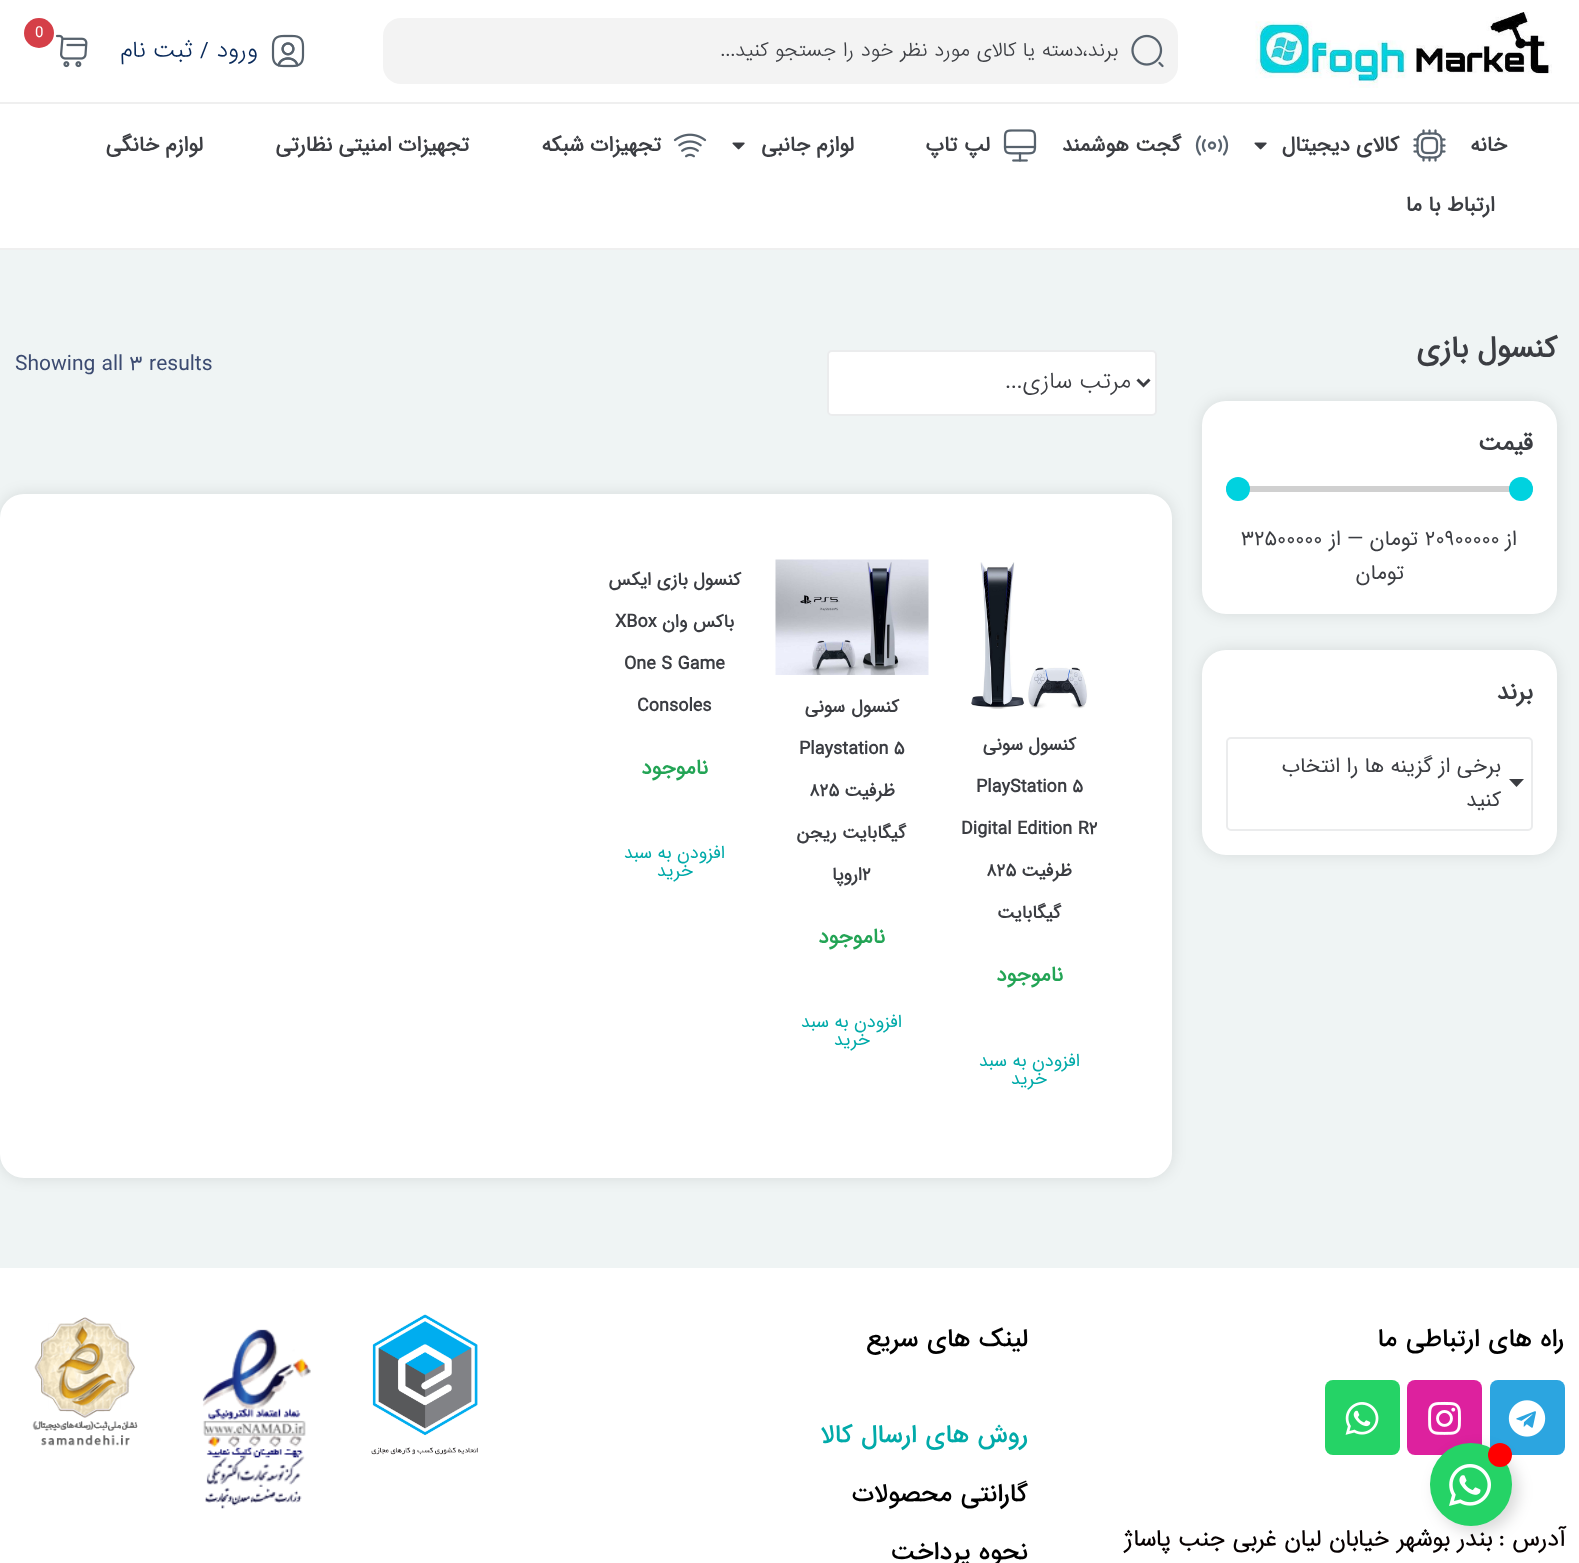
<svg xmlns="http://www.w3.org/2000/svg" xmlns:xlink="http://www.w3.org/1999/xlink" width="1579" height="1563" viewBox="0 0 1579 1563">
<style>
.cls-1{font:300 18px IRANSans;direction:rtl;fill:#3b3d42}
.cls-2{font:300 15px IRANSans;fill:#ffffff}
.cls-3{font:300 21px IRANSans;direction:rtl;fill:#072859}
.cls-4{font:bold 21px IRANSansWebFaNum;direction:rtl;fill:#3b3d42}
.cls-5{font:bold 30px IRANSansWebFaNum;direction:rtl;fill:#3b3d42}
.cls-6{font:bold 24px IRANSansWebFaNum;direction:rtl;fill:#3b3d42}
.cls-7{font:21px IRANSansWebFaNum;direction:rtl;fill:#3b3d42}
.cls-8{font:21px IRANSansWebFaNum;fill:#3b3d42}
.cls-9{font:21px IRANSansWebFaNum;fill:#3c4b71}
.cls-10{font:300 21px IRANSans;direction:rtl;fill:#3b3d42}
.cls-11{font:bold 18px IRANSansWebFaNum;direction:rtl;fill:#3b3d42}
.cls-12{font:bold 18px IRANSansWebFaNum;fill:#3b3d42}
.cls-13{font:bold 21px IRANSansWebFaNum;direction:rtl;fill:#23a455}
.cls-14{font:18px IRANSansWebFaNum;direction:rtl;fill:#01aaa9}
.cls-15{font:500 22.5px IRANSans;direction:rtl;fill:#000000}
.cls-16{font:bold 21px IRANSans;direction:rtl;fill:#070000}
.cls-17{font:500 22.5px IRANSans;direction:rtl;fill:#01aaa9}
</style>
<rect width="100%" height="100%" fill="#eff4f4"/>
<rect fill="#ffffff" x="0" y="0" width="1579" height="102"/>
<image xlink:href="image0.png" x="1255" y="12" width="297" height="76"/>
<rect fill="#f3f3f3" x="383" y="18" width="795" height="66" rx="18"/>
<image xlink:href="image1.png" x="1131" y="34" width="33" height="34"/>
<circle fill="#d53f48" cx="39" cy="33" r="15"/>
<image xlink:href="image2.png" x="55" y="34" width="33" height="34"/>
<image xlink:href="image3.png" x="271" y="34" width="34" height="34"/>
<rect fill="#ffffff" x="0" y="104" width="1579" height="144"/>
<rect fill="#efefef" x="0" y="102" width="1579" height="2"/>
<rect fill="#efefef" x="0" y="248" width="1579" height="2"/>
<image xlink:href="image4.png" x="1413" y="129" width="33" height="33"/>
<image xlink:href="image5.png" x="1254" y="142" width="13" height="8"/>
<image xlink:href="image6.png" x="1195" y="135" width="34" height="21"/>
<image xlink:href="image7.png" x="1003" y="129" width="34" height="33"/>
<image xlink:href="image5.png" x="732" y="142" width="13" height="8"/>
<image xlink:href="image8.png" x="673" y="133" width="34" height="25"/>
<rect fill="#000000" fill-opacity="0.1" filter="blur(7.5px)" x="1202" y="401" width="355" height="213" rx="24"/>
<rect fill="#ffffff" x="1202" y="401" width="355" height="213" rx="24"/>
<rect fill="#d0d0d0" x="1226" y="486" width="307" height="6"/>
<circle fill="#00d2df" cx="1521" cy="489" r="12"/>
<circle fill="#00d2df" cx="1238" cy="489" r="12"/>
<rect fill="#000000" fill-opacity="0.1" filter="blur(7.5px)" x="1202" y="650" width="355" height="205" rx="24"/>
<rect fill="#ffffff" x="1202" y="650" width="355" height="205" rx="24"/>
<rect fill="none" stroke="#ebeced" stroke-width="2" x="1227" y="738" width="305" height="92" rx="4"/>
<path fill="#3b3d42" d="M1509 779H1524L1516.5 787Z"/>
<rect fill="#ffffff" stroke="#ebeced" stroke-width="2" x="828" y="351" width="328" height="64" rx="4"/>
<path fill="none" stroke="#3b3d42" stroke-width="3" d="M1137.5 379.5L1143.5 385.5L1149.5 379.5"/>
<rect fill="#000000" fill-opacity="0.1" filter="blur(7.5px)" x="0" y="494" width="1172" height="684" rx="24"/>
<rect fill="#ffffff" x="0" y="494" width="1172" height="684" rx="24"/>
<image xlink:href="image9.png" x="971" y="562" width="117" height="147"/>
<image xlink:href="image10.png" x="775" y="559" width="154" height="116"/>
<rect fill="#ffffff" x="0" y="1268" width="1579" height="295"/>
<rect fill="#2ca5e0" x="1490" y="1380" width="75" height="75" rx="8"/>
<image xlink:href="image11.png" x="1508" y="1400" width="38" height="37"/>
<rect fill="#dd219e" x="1407" y="1380" width="75" height="75" rx="8"/>
<image xlink:href="image12.png" x="1428" y="1401" width="33" height="34"/>
<rect fill="#25d366" x="1325" y="1380" width="75" height="75" rx="8"/>
<image xlink:href="image13.png" x="1345" y="1402" width="34" height="33"/>
<image xlink:href="image14.png" x="371" y="1314" width="107" height="141"/>
<image xlink:href="image15.png" x="202" y="1329" width="109" height="180"/>
<image xlink:href="image16.png" x="32" y="1317" width="106" height="129"/>
<rect fill="#000000" fill-opacity="0.15" filter="blur(7.5px)" x="1436" y="1449" width="82" height="83" rx="41"/>
<rect fill="#25d366" x="1430" y="1443" width="82" height="83" rx="41"/>
<image xlink:href="image17.png" x="1449" y="1464" width="42" height="42"/>
<circle fill="#ff0000" cx="1500" cy="1455" r="12"/>
<text class="cls-1" x="1118" y="56">برند،دسته یا کالای مورد نظر خود را جستجو کنید...</text>
<text class="cls-2" x="35" y="37">0</text>
<text class="cls-3" x="258" y="57">ورود / ثبت نام</text>
<text class="cls-4" x="1507" y="151">خانه</text>
<text class="cls-4" x="1399" y="151">کالای دیجیتال</text>
<text class="cls-4" x="1181" y="151">گجت هوشمند</text>
<text class="cls-4" x="990" y="151">لپ تاپ</text>
<text class="cls-4" x="854" y="151">لوازم جانبی</text>
<text class="cls-4" x="661" y="151">تجهیزات شبکه</text>
<text class="cls-4" x="469" y="151">تجهیزات امنیتی نظارتی</text>
<text class="cls-4" x="203" y="151">لوازم خانگی</text>
<text class="cls-4" x="1495" y="211">ارتباط با ما</text>
<text class="cls-5" x="1557" y="357">کنسول بازی</text>
<text class="cls-6" x="1533" y="450">قیمت</text>
<text class="cls-7" x="1517" y="545">از</text>
<text class="cls-8" x="1425" y="545">20900000</text>
<text class="cls-7" x="1418" y="545">تومان</text>
<text class="cls-8" x="1347" y="545">—</text>
<text class="cls-7" x="1341" y="545">از</text>
<text class="cls-8" x="1241" y="545">32500000</text>
<text class="cls-7" x="1404" y="579">تومان</text>
<text class="cls-6" x="1533" y="699">برند</text>
<text class="cls-7"><tspan x="1501" y="772">برخی از گزینه ها را انتخاب</tspan><tspan x="1501" y="806">کنید</tspan></text>
<text class="cls-9" x="15" y="370">Showing all 3 results</text>
<text class="cls-10" x="1131" y="388">مرتب سازی...</text>
<text class="cls-11" x="1076" y="750">کنسول</text>
<text class="cls-11" x="1023" y="750">سونی</text>
<text class="cls-12" x="976" y="792">PlayStation 5</text>
<text class="cls-12" x="961" y="834">Digital Edition R2</text>
<text class="cls-11" x="1072" y="876">ظرفیت</text>
<text class="cls-12" x="986" y="876">825</text>
<text class="cls-11" x="1061" y="918">گیگابایت</text>
<text class="cls-13" x="1063" y="981">ناموجود</text>
<text class="cls-14" x="1080" y="1066">افزودن به سبد</text>
<text class="cls-14" x="1047" y="1084">خرید</text>
<text class="cls-11" x="899" y="712">کنسول</text>
<text class="cls-11" x="845" y="712">سونی</text>
<text class="cls-12" x="799" y="754">Playstation 5</text>
<text class="cls-11" x="895" y="796">ظرفیت</text>
<text class="cls-12" x="809" y="796">825</text>
<text class="cls-11" x="906" y="838">گیگابایت ریجن</text>
<text class="cls-12" x="862" y="880">2</text>
<text class="cls-11" x="862" y="880">اروپا</text>
<text class="cls-13" x="885" y="943">ناموجود</text>
<text class="cls-14" x="902" y="1027">افزودن به سبد</text>
<text class="cls-14" x="870" y="1045">خرید</text>
<text class="cls-11" x="741" y="585">کنسول بازی ایکس</text>
<text class="cls-11" x="734" y="627">باکس وان</text>
<text class="cls-12" x="615" y="627">XBox</text>
<text class="cls-12" x="624" y="669">One S Game</text>
<text class="cls-12" x="637" y="711">Consoles</text>
<text class="cls-13" x="708" y="774">ناموجود</text>
<text class="cls-14" x="725" y="858">افزودن به سبد</text>
<text class="cls-14" x="693" y="876">خرید</text>
<text class="cls-15" x="1564" y="1346">راه های ارتباطی ما</text>
<text class="cls-16" x="1565" y="1546">آدرس :‌</text>
<text class="cls-16" x="1492" y="1546">بندر بوشهر خیابان لیان غربی جنب پاساژ</text>
<text class="cls-15" x="1028" y="1346">لینک های سریع</text>
<text class="cls-17" x="1028" y="1442">روش های ارسال کالا</text>
<text class="cls-15" x="1028" y="1501">گارانتی محصولات</text>
<text class="cls-15" x="1028" y="1559">نحوه پرداخت</text>
</svg>
